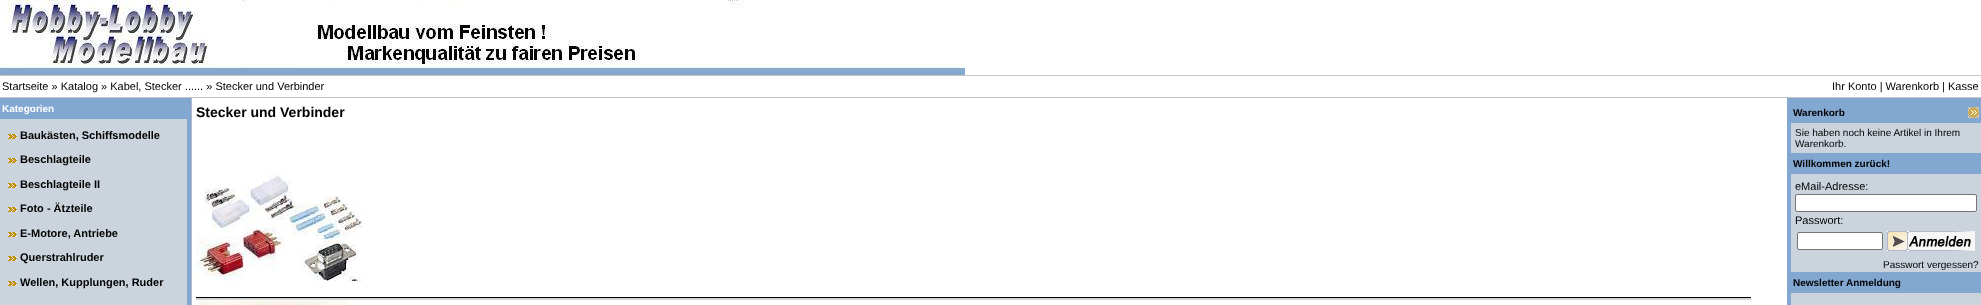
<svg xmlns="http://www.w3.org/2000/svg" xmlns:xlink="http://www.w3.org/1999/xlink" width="1981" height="305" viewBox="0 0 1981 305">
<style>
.cls-1{font:11px Liberation Sans;fill:#000000}
.cls-2{font:bold 10px Liberation Sans;fill:#ffffff}
.cls-3{font:bold 11px Liberation Sans;fill:#000000}
.cls-4{font:bold 14px Liberation Sans;fill:#000000}
.cls-5{font:bold 10px Liberation Sans;fill:#000000}
.cls-6{font:10px Liberation Sans;fill:#000000}
</style>
<rect width="100%" height="100%" fill="#ffffff"/>
<image xlink:href="image0.png" x="0" y="0" width="965" height="75"/>
<rect fill="#c5c5c5" x="0" y="75" width="1981" height="1"/>
<rect fill="#c5c5c5" x="0" y="97" width="1981" height="1"/>
<rect fill="#b6b7cb" x="191" y="98" width="1" height="207"/>
<rect fill="#82a7d1" x="0" y="98" width="191" height="21"/>
<rect fill="#cbd4dd" x="0" y="119" width="187" height="186"/>
<rect fill="#82a7d1" x="187" y="119" width="4" height="186"/>
<image xlink:href="image1.png" x="8" y="134" width="9" height="5"/>
<image xlink:href="image1.png" x="8" y="158" width="9" height="5"/>
<image xlink:href="image1.png" x="8" y="183" width="9" height="5"/>
<image xlink:href="image1.png" x="8" y="207" width="9" height="5"/>
<image xlink:href="image1.png" x="8" y="232" width="9" height="5"/>
<image xlink:href="image1.png" x="8" y="256" width="9" height="5"/>
<image xlink:href="image1.png" x="8" y="281" width="9" height="5"/>
<image xlink:href="image2.png" x="196" y="172" width="167" height="109"/>
<rect fill="#000000" x="196" y="297" width="1555" height="1"/>
<rect fill="#d4d4d4" x="196" y="298" width="1555" height="2"/>
<image xlink:href="image3.png" x="199" y="301" width="150" height="4"/>
<rect fill="#cbd4dd" x="1791" y="123" width="190" height="182"/>
<rect fill="#82a7d1" x="1787" y="98" width="194" height="4"/>
<rect fill="#82a7d1" x="1787" y="98" width="4" height="207"/>
<rect fill="#82a7d1" x="1791" y="102" width="190" height="21"/>
<image xlink:href="image4.png" x="1968" y="107" width="11" height="11"/>
<rect fill="#82a7d1" x="1791" y="153" width="190" height="21"/>
<rect fill="#ffffff" stroke="#767676" x="1795.5" y="194.5" width="181" height="17" rx="1.5"/>
<rect fill="#ffffff" stroke="#767676" x="1797.5" y="232.5" width="85" height="17" rx="1.5"/>
<image xlink:href="image5.png" x="1887" y="231" width="88" height="20"/>
<rect fill="#82a7d1" x="1791" y="272" width="190" height="21"/>
<text class="cls-1" x="2" y="90">Startseite » Katalog » Kabel, Stecker ...... » Stecker und Verbinder</text>
<text class="cls-1" x="1832" y="90">Ihr Konto | Warenkorb | Kasse</text>
<text class="cls-2" x="2" y="112">Kategorien</text>
<text class="cls-3" x="20" y="139">Baukästen, Schiffsmodelle</text>
<text class="cls-3" x="20" y="163">Beschlagteile</text>
<text class="cls-3" x="20" y="188">Beschlagteile II</text>
<text class="cls-3" x="20" y="212">Foto - Ätzteile</text>
<text class="cls-3" x="20" y="237">E-Motore, Antriebe</text>
<text class="cls-3" x="20" y="261">Querstrahlruder</text>
<text class="cls-3" x="20" y="286">Wellen, Kupplungen, Ruder</text>
<text class="cls-4" x="196" y="117">Stecker und Verbinder</text>
<text class="cls-5" x="1793" y="116">Warenkorb</text>
<text class="cls-6"><tspan x="1795" y="136">Sie haben noch keine Artikel in Ihrem</tspan><tspan x="1795" y="147">Warenkorb.</tspan></text>
<text class="cls-5" x="1793" y="167">Willkommen zurück!</text>
<text class="cls-1" x="1795" y="190">eMail-Adresse:</text>
<text class="cls-1" x="1795" y="224">Passwort:</text>
<text class="cls-6" x="1883" y="268">Passwort vergessen?</text>
<text class="cls-5" x="1793" y="286">Newsletter Anmeldung</text>
</svg>
